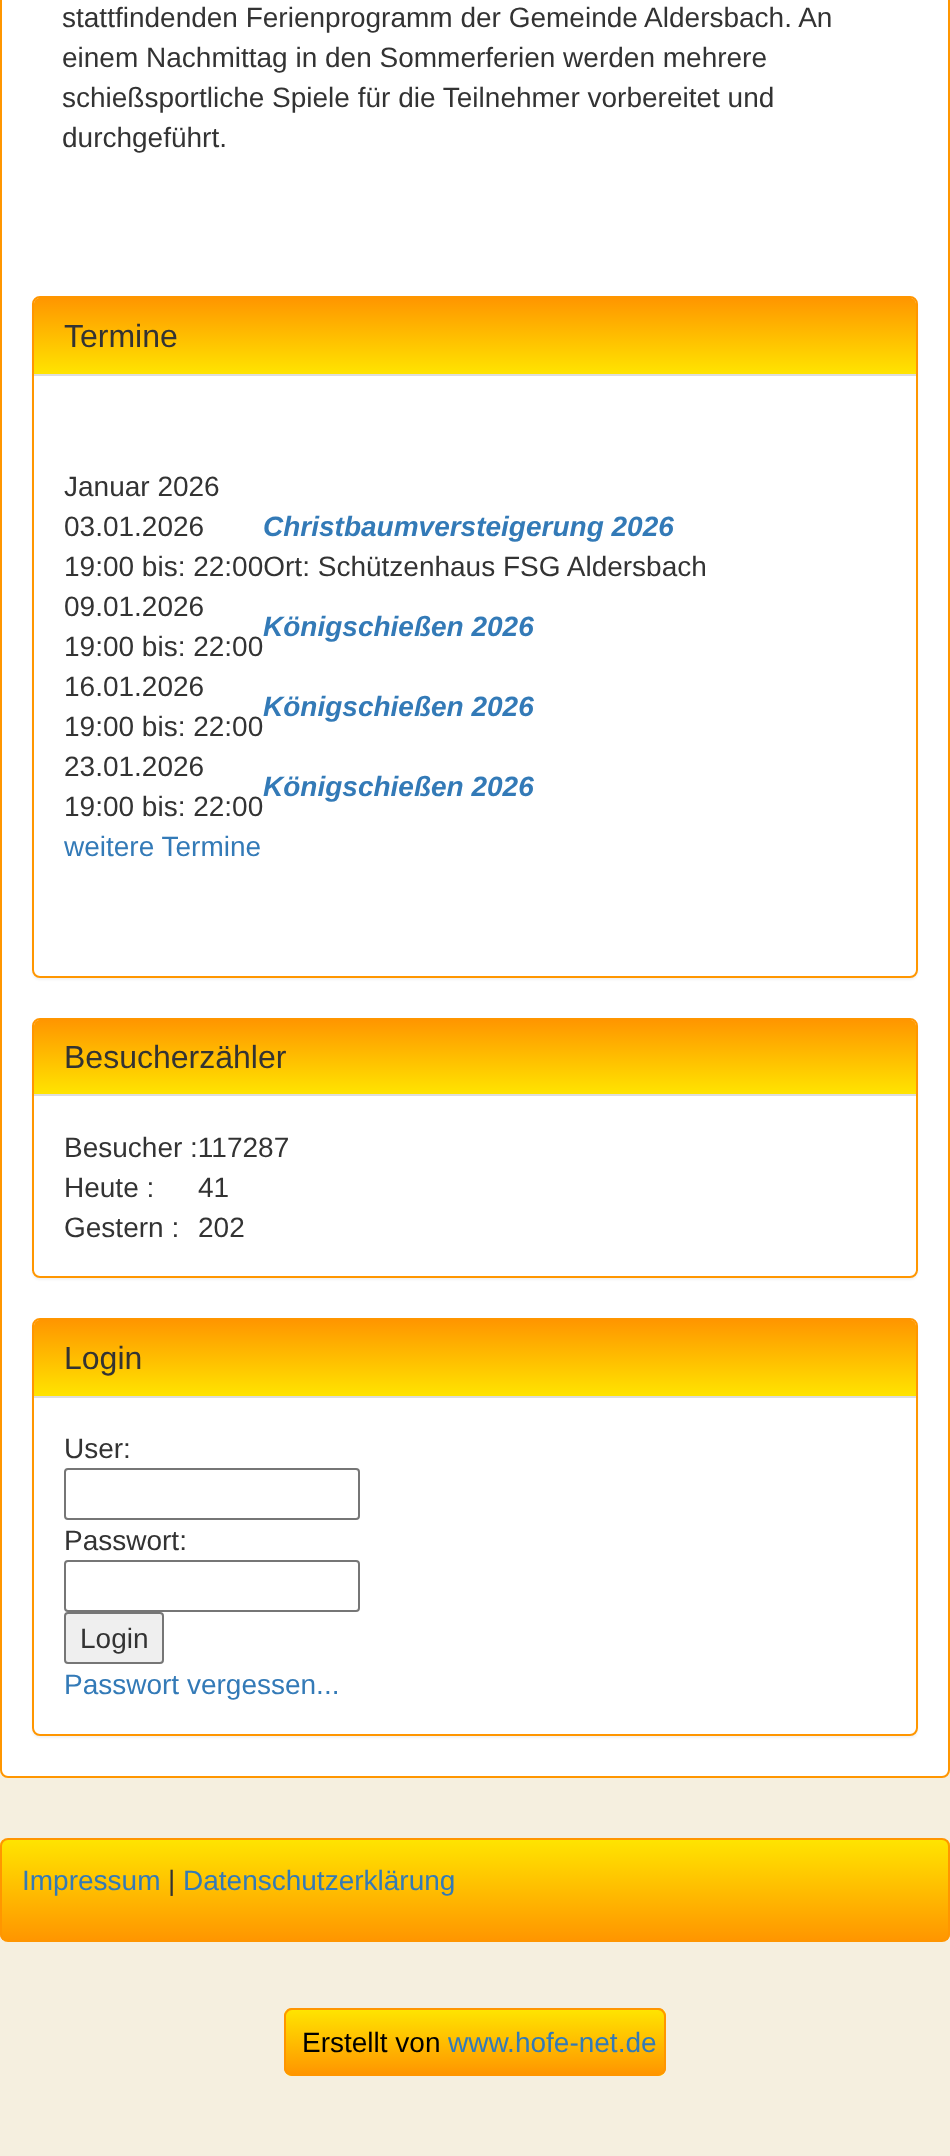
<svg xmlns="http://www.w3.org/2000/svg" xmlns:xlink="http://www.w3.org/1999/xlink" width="950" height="2156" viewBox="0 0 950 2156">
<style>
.cls-1{font:28px Liberation Sans;fill:#333333}
.cls-2{font:32px Liberation Sans;fill:#333333}
.cls-3{font:italic bold 28px Liberation Sans;fill:#337ab7}
.cls-4{font:28px Liberation Sans;fill:#337ab7}
.cls-5{font:28px Liberation Sans;fill:#000000}
</style>
<defs>
<linearGradient id="g1" gradientUnits="userSpaceOnUse" x1="475" y1="298" x2="475" y2="374"><stop offset="0" stop-color="#ff9600"/><stop offset="1" stop-color="#ffe400"/></linearGradient>
<linearGradient id="g2" gradientUnits="userSpaceOnUse" x1="475" y1="1020" x2="475" y2="1094"><stop offset="0" stop-color="#ff9600"/><stop offset="1" stop-color="#ffe400"/></linearGradient>
<linearGradient id="g3" gradientUnits="userSpaceOnUse" x1="475" y1="1320" x2="475" y2="1396"><stop offset="0" stop-color="#ff9600"/><stop offset="1" stop-color="#ffe400"/></linearGradient>
<clipPath id="clip1"><rect x="0" y="1838" width="950" height="104" rx="8"/></clipPath>
<linearGradient id="g4" gradientUnits="userSpaceOnUse" x1="475" y1="1840" x2="475" y2="1940"><stop offset="0" stop-color="#ffe400"/><stop offset="1" stop-color="#ff9600"/></linearGradient>
<clipPath id="clip2"><path d="M292 2008H448V2076H292C287.5 2076 284 2072.5 284 2068V2016C284 2011.5 287.5 2008 292 2008Z"/></clipPath>
<linearGradient id="g5" gradientUnits="userSpaceOnUse" x1="367" y1="1946" x2="367" y2="2010"><stop offset="0" stop-color="#ffe400"/><stop offset="1" stop-color="#ff9600"/></linearGradient>
<linearGradient id="g6" gradientUnits="userSpaceOnUse" x1="367" y1="2010" x2="367" y2="2074"><stop offset="0" stop-color="#ffe400"/><stop offset="1" stop-color="#ff9600"/></linearGradient>
<linearGradient id="g7" gradientUnits="userSpaceOnUse" x1="367" y1="2074" x2="367" y2="2138"><stop offset="0" stop-color="#ffe400"/><stop offset="1" stop-color="#ff9600"/></linearGradient>
<clipPath id="clip3"><path d="M448 2008H658C662.5 2008 666 2011.5 666 2016V2068C666 2072.5 662.5 2076 658 2076H448Z"/></clipPath>
<linearGradient id="g8" gradientUnits="userSpaceOnUse" x1="556" y1="1946" x2="556" y2="2010"><stop offset="0" stop-color="#ffe400"/><stop offset="1" stop-color="#ff9600"/></linearGradient>
<linearGradient id="g9" gradientUnits="userSpaceOnUse" x1="556" y1="2010" x2="556" y2="2074"><stop offset="0" stop-color="#ffe400"/><stop offset="1" stop-color="#ff9600"/></linearGradient>
<linearGradient id="g10" gradientUnits="userSpaceOnUse" x1="556" y1="2074" x2="556" y2="2138"><stop offset="0" stop-color="#ffe400"/><stop offset="1" stop-color="#ff9600"/></linearGradient>
</defs>
<rect width="100%" height="100%" fill="#f5efdf"/>
<rect fill="#ffffff" stroke="#ff9600" stroke-width="2" x="1" y="-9" width="948" height="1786" rx="7"/>
<rect fill="#000000" fill-opacity="0.05" filter="blur(1px)" x="32" y="298" width="886" height="682" rx="8"/>
<rect fill="#ffffff" stroke="#ff9600" stroke-width="2" x="33" y="297" width="884" height="680" rx="7"/>
<path fill="url(#g1)" d="M40 298H910C913.5 298 916 300.5 916 304V374H34V304C34 300.5 36.5 298 40 298Z"/>
<rect fill="#dddddd" x="34" y="374" width="882" height="2"/>
<rect fill="#000000" fill-opacity="0.05" filter="blur(1px)" x="32" y="1020" width="886" height="260" rx="8"/>
<rect fill="#ffffff" stroke="#ff9600" stroke-width="2" x="33" y="1019" width="884" height="258" rx="7"/>
<path fill="url(#g2)" d="M40 1020H910C913.5 1020 916 1022.5 916 1026V1094H34V1026C34 1022.5 36.5 1020 40 1020Z"/>
<rect fill="#dddddd" x="34" y="1094" width="882" height="2"/>
<rect fill="#000000" fill-opacity="0.05" filter="blur(1px)" x="32" y="1320" width="886" height="418" rx="8"/>
<rect fill="#ffffff" stroke="#ff9600" stroke-width="2" x="33" y="1319" width="884" height="416" rx="7"/>
<path fill="url(#g3)" d="M40 1320H910C913.5 1320 916 1322.5 916 1326V1396H34V1326C34 1322.5 36.5 1320 40 1320Z"/>
<rect fill="#dddddd" x="34" y="1396" width="882" height="2"/>
<rect fill="none" stroke="#767676" stroke-width="2" x="65" y="1469" width="294" height="50" rx="3"/>
<rect fill="none" stroke="#767676" stroke-width="2" x="65" y="1561" width="294" height="50" rx="3"/>
<rect fill="#efefef" stroke="#767676" stroke-width="2" x="65" y="1613" width="98" height="50" rx="3"/>
<g clip-path="url(#clip1)">
<rect fill="url(#g4)" x="0" y="1840" width="950" height="100"/>
</g>
<rect fill="none" stroke="#ff9600" stroke-width="2" x="1" y="1839" width="948" height="102" rx="7"/>
<g clip-path="url(#clip2)">
<rect fill="url(#g5)" x="284" y="2008" width="8" height="2"/>
<rect fill="url(#g6)" x="284" y="2010" width="164" height="64"/>
<rect fill="url(#g7)" x="284" y="2074" width="8" height="2"/>
</g>
<path fill="#ff9600" fill-rule="evenodd" d="M292 2008H448V2076H292C288 2076 284 2072 284 2068V2016C284 2012 288 2008 292 2008ZM292 2010H448V2074H292C289 2074 286 2071 286 2068V2016C286 2013 289 2010 292 2010Z"/>
<g clip-path="url(#clip3)">
<rect fill="url(#g8)" x="658" y="2008" width="8" height="2"/>
<rect fill="url(#g9)" x="448" y="2010" width="218" height="64"/>
<rect fill="url(#g10)" x="658" y="2074" width="8" height="2"/>
</g>
<path fill="#ff9600" fill-rule="evenodd" d="M448 2008H658C662 2008 666 2012 666 2016V2068C666 2072 662 2076 658 2076H448ZM448 2010H658C661 2010 664 2013 664 2016V2068C664 2071 661 2074 658 2074H448Z"/>
<text class="cls-1"><tspan x="62" y="27">stattfindenden Ferienprogramm der Gemeinde Aldersbach. An</tspan><tspan x="62" y="67">einem Nachmittag in den Sommerferien werden mehrere</tspan><tspan x="62" y="107">schießsportliche Spiele für die Teilnehmer vorbereitet und</tspan><tspan x="62" y="147">durchgeführt.</tspan></text>
<text class="cls-2" x="64" y="347">Termine</text>
<text class="cls-1" x="64" y="496">Januar 2026</text>
<text class="cls-3" x="263" y="536">Christbaumversteigerung 2026</text>
<text class="cls-1"><tspan x="64" y="536">03.01.2026</tspan><tspan x="64" y="576">19:00 bis: 22:00Ort: Schützenhaus FSG Aldersbach</tspan><tspan x="64" y="616">09.01.2026</tspan><tspan x="64" y="656">19:00 bis: 22:00</tspan></text>
<text class="cls-3" x="263" y="636">Königschießen 2026</text>
<text class="cls-1"><tspan x="64" y="696">16.01.2026</tspan><tspan x="64" y="736">19:00 bis: 22:00</tspan></text>
<text class="cls-3" x="263" y="716">Königschießen 2026</text>
<text class="cls-1"><tspan x="64" y="776">23.01.2026</tspan><tspan x="64" y="816">19:00 bis: 22:00</tspan></text>
<text class="cls-3" x="263" y="796">Königschießen 2026</text>
<text class="cls-4" x="64" y="856">weitere Termine</text>
<text class="cls-2" x="64" y="1068">Besucherzähler</text>
<text class="cls-1"><tspan x="64" y="1157">Besucher :117287</tspan><tspan x="64" y="1197">Heute :</tspan></text>
<text class="cls-1" x="198" y="1197">41</text>
<text class="cls-1" x="64" y="1237">Gestern :</text>
<text class="cls-1" x="198" y="1237">202</text>
<text class="cls-2" x="64" y="1369">Login</text>
<text class="cls-1" x="64" y="1458">User:</text>
<text class="cls-1" x="64" y="1550">Passwort:</text>
<text class="cls-1" x="80" y="1648">Login</text>
<text class="cls-4" x="64" y="1694">Passwort vergessen...</text>
<text class="cls-4" x="22" y="1890">Impressum</text>
<text class="cls-1" x="168" y="1890">|</text>
<text class="cls-4" x="183" y="1890">Datenschutzerklärung</text>
<text class="cls-5" x="302" y="2052">Erstellt von</text>
<text class="cls-4" x="448" y="2052">www.hofe-net.de</text>
</svg>
